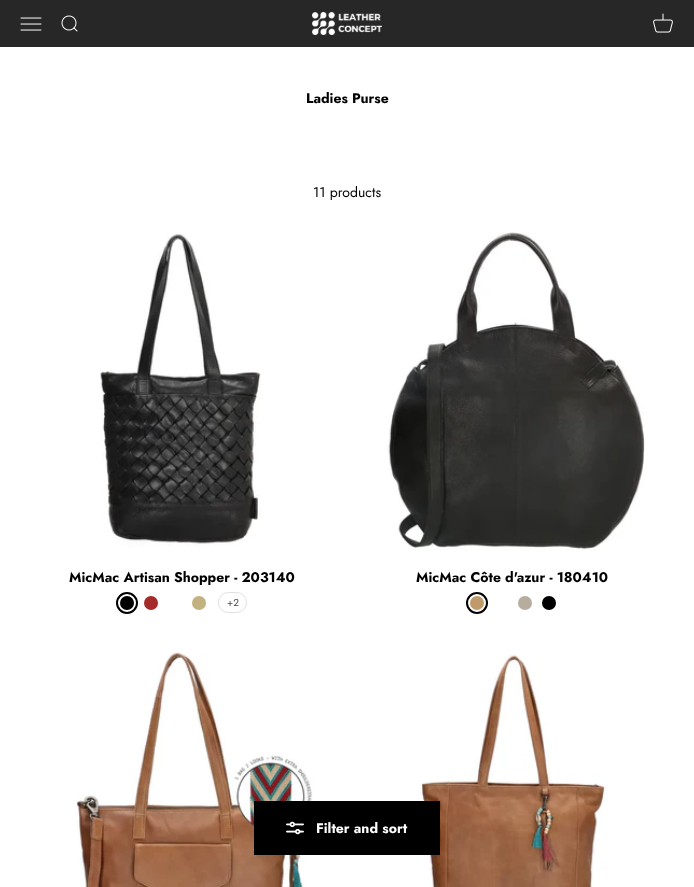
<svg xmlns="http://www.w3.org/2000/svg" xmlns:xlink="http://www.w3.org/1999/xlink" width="694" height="887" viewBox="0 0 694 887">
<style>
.cls-1{font:bold 14px Jost;fill:#000000}
.cls-2{font:14px Jost;fill:#000000}
.cls-3{font:10px Jost;fill:#4d4d4d}
.cls-4{font:bold 14px Jost;fill:#ffffff}
</style>
<rect width="100%" height="100%" fill="#ffffff"/>
<rect fill="#272727" x="0" y="0" width="694" height="47"/>
<image xlink:href="image0.png" x="20" y="17" width="22" height="14"/>
<image xlink:href="image1.png" x="61" y="15" width="17" height="17"/>
<image xlink:href="image2.png" x="312" y="12" width="70" height="23"/>
<image xlink:href="image3.png" x="653" y="13" width="20" height="20"/>
<image xlink:href="image4.png" x="100" y="233" width="161" height="314"/>
<circle fill="#000000" cx="127" cy="603" r="7"/>
<circle fill="none" stroke="#000000" stroke-width="2" cx="127" cy="603" r="10"/>
<circle fill="#a52a2a" cx="151" cy="603" r="7"/>
<circle fill="#c2b280" cx="199" cy="603" r="7"/>
<rect fill="none" stroke="#e0e0e0" x="218.5" y="592.5" width="28" height="20" rx="10"/>
<image xlink:href="image5.png" x="386" y="232" width="259" height="319"/>
<circle fill="#c19a6b" cx="477" cy="603" r="7"/>
<circle fill="none" stroke="#000000" stroke-width="2" cx="477" cy="603" r="10"/>
<circle fill="#b6ad9e" cx="525" cy="603" r="7"/>
<circle fill="#000000" cx="549" cy="603" r="7"/>
<image xlink:href="image6.png" x="76" y="652" width="237" height="235"/>
<image xlink:href="image7.png" x="420" y="654" width="188" height="233"/>
<rect fill="#000000" x="254" y="801" width="186" height="54"/>
<image xlink:href="image8.png" x="286" y="821" width="18" height="14"/>
<text class="cls-1" x="306" y="103">Ladies Purse</text>
<text class="cls-2" x="313" y="197">11 products</text>
<text class="cls-1" x="69" y="582">MicMac Artisan Shopper - 203140</text>
<text class="cls-3" x="227" y="606">+2</text>
<text class="cls-1" x="416" y="582">MicMac Côte d'azur - 180410</text>
<text class="cls-4" x="316" y="833">Filter and sort</text>
</svg>
